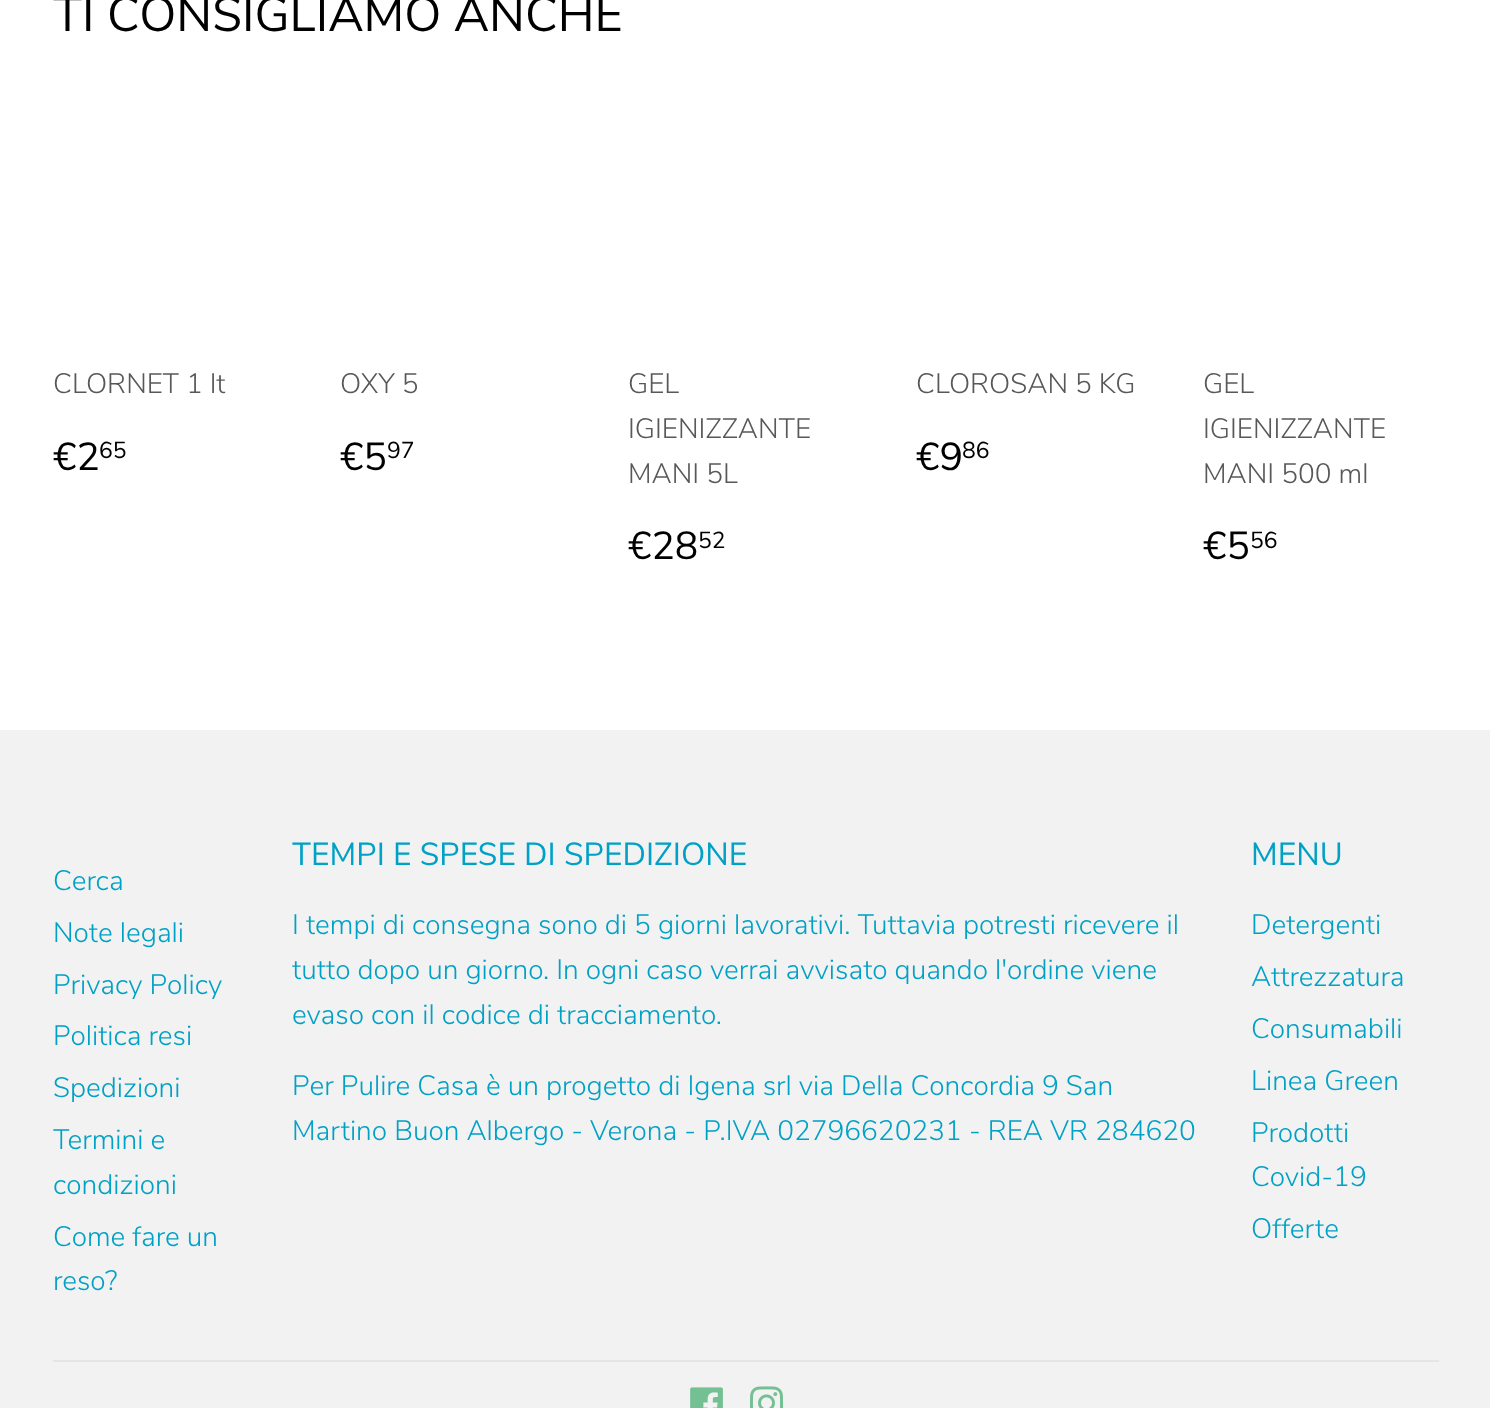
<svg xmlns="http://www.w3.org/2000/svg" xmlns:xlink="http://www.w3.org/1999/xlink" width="1490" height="1408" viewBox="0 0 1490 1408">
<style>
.cls-1{font:48.5px Nunito Sans;fill:#000000}
.cls-2{font:300 28px Nunito Sans;fill:#585858}
.cls-3{font:39px Nunito Sans;fill:#000000}
.cls-4{font:23px Nunito Sans;fill:#000000}
.cls-5{font:300 28px Nunito Sans;fill:#00a1c6}
.cls-6{font:31.75px Nunito Sans;fill:#00a1c6}
</style>
<rect width="100%" height="100%" fill="#ffffff"/>
<rect fill="#f2f2f2" x="0" y="730" width="1490" height="678"/>
<rect fill="#e5e5e5" x="53" y="1360" width="1386" height="2"/>
<image xlink:href="image0.png" x="690" y="1387" width="33" height="21"/>
<image xlink:href="image1.png" x="750" y="1386" width="33" height="22"/>
<text class="cls-1" x="53" y="31">TI CONSIGLIAMO ANCHE</text>
<text class="cls-2" x="53" y="393">CLORNET 1 lt</text>
<text class="cls-3" x="53" y="470">€2</text>
<text class="cls-4" x="99" y="458">65</text>
<text class="cls-2" x="340" y="393">OXY 5</text>
<text class="cls-3" x="340" y="470">€5</text>
<text class="cls-4" x="387" y="458">97</text>
<text class="cls-2"><tspan x="628" y="393">GEL</tspan><tspan x="628" y="438">IGIENIZZANTE</tspan><tspan x="628" y="483">MANI 5L</tspan></text>
<text class="cls-3" x="628" y="559">€28</text>
<text class="cls-4" x="698" y="548">52</text>
<text class="cls-2" x="916" y="393">CLOROSAN 5 KG</text>
<text class="cls-3" x="916" y="470">€9</text>
<text class="cls-4" x="962" y="458">86</text>
<text class="cls-2"><tspan x="1203" y="393">GEL</tspan><tspan x="1203" y="438">IGIENIZZANTE</tspan><tspan x="1203" y="483">MANI 500 ml</tspan></text>
<text class="cls-3" x="1203" y="559">€5</text>
<text class="cls-4" x="1250" y="548">56</text>
<text class="cls-5"><tspan x="53" y="890">Cerca</tspan><tspan x="53" y="942">Note legali</tspan><tspan x="53" y="994">Privacy Policy</tspan><tspan x="53" y="1045">Politica resi</tspan><tspan x="53" y="1097">Spedizioni</tspan><tspan x="53" y="1149">Termini e</tspan><tspan x="53" y="1194">condizioni</tspan><tspan x="53" y="1246">Come fare un</tspan><tspan x="53" y="1290">reso?</tspan></text>
<text class="cls-6" x="292" y="865">TEMPI E SPESE DI SPEDIZIONE</text>
<text class="cls-5"><tspan x="292" y="934">I tempi di consegna sono di 5 giorni lavorativi. Tuttavia potresti ricevere il</tspan><tspan x="292" y="979">tutto dopo un giorno. In ogni caso verrai avvisato quando l'ordine viene</tspan><tspan x="292" y="1024">evaso con il codice di tracciamento.</tspan></text>
<text class="cls-5"><tspan x="292" y="1095">Per Pulire Casa è un progetto di Igena srl via Della Concordia 9 San</tspan><tspan x="292" y="1140">Martino Buon Albergo - Verona - P.IVA 02796620231 - REA VR 284620</tspan></text>
<text class="cls-6" x="1251" y="865">MENU</text>
<text class="cls-5"><tspan x="1251" y="934">Detergenti</tspan><tspan x="1251" y="986">Attrezzatura</tspan><tspan x="1251" y="1038">Consumabili</tspan><tspan x="1251" y="1090">Linea Green</tspan><tspan x="1251" y="1142">Prodotti</tspan><tspan x="1251" y="1186">Covid-19</tspan><tspan x="1251" y="1238">Offerte</tspan></text>
</svg>
